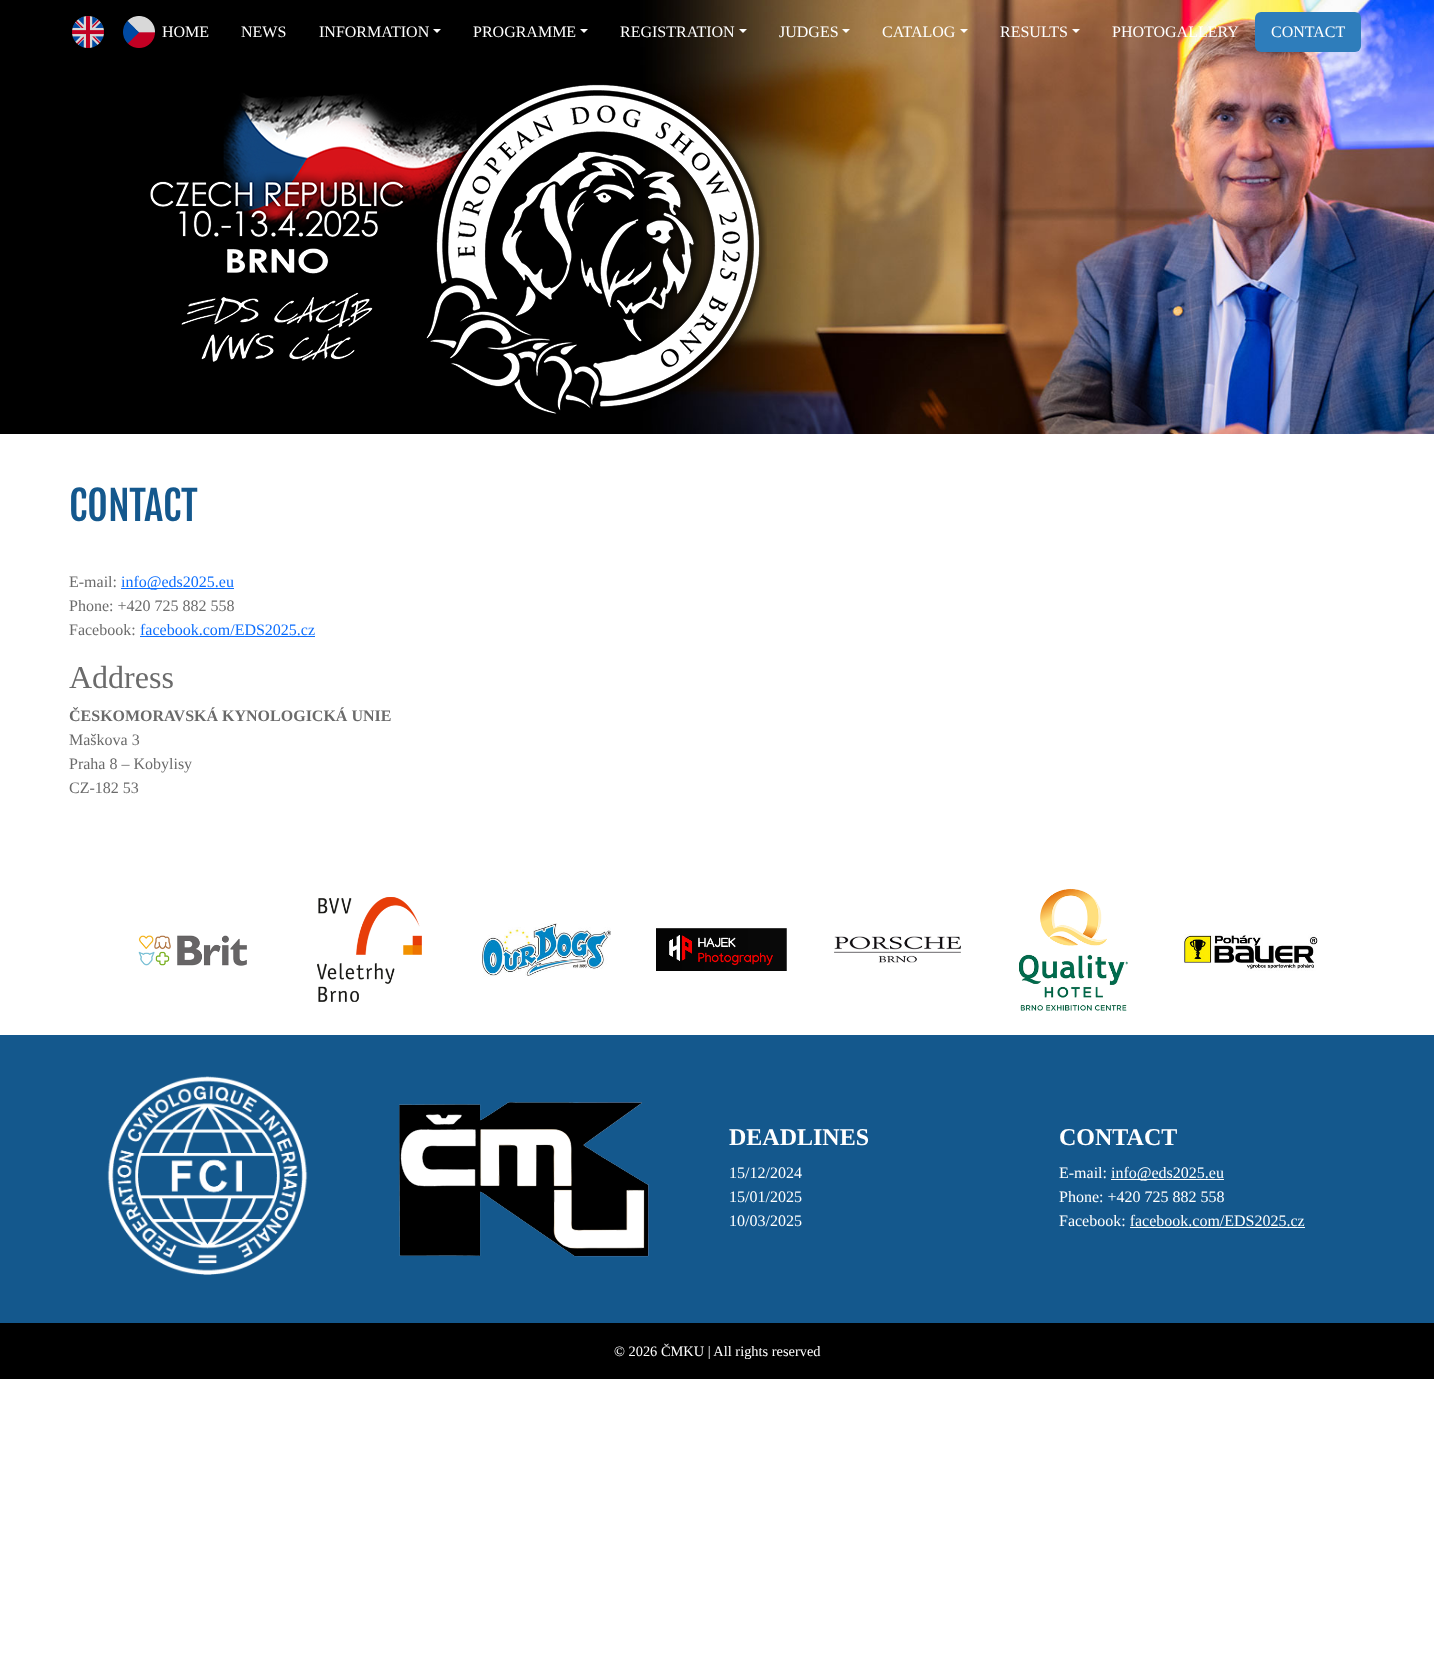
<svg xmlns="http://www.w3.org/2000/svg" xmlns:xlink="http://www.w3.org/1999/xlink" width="1434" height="1670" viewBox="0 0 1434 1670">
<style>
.cls-1{font:16px Liberation Serif;fill:#ffffff}
.cls-2{font:40px Fjalla One;fill:#14588d}
.cls-3{font:16px Liberation Serif;fill:#6b6b6b}
.cls-4{font:16px Liberation Serif;fill:#0d6efd}
.cls-5{font:32px Liberation Serif;fill:#6b6b6b}
.cls-6{font:bold 16px Liberation Serif;fill:#6b6b6b}
.cls-7{font:bold 24px Liberation Serif;fill:#ffffff}
.cls-8{font:14.4px Liberation Serif;fill:#ffffff}
</style>
<rect width="100%" height="100%" fill="#ffffff"/>
<image xlink:href="image0.png" x="0" y="0" width="1434" height="434"/>
<image xlink:href="image1.png" x="72" y="16" width="32" height="32"/>
<image xlink:href="image2.png" x="123" y="16" width="32" height="32"/>
<path fill="#ffffff" d="M433 29H441L437 33Z"/>
<path fill="#ffffff" d="M580 29H588L584 33Z"/>
<path fill="#ffffff" d="M739 29H747L743 33Z"/>
<path fill="#ffffff" d="M842 29H850L846 33Z"/>
<path fill="#ffffff" d="M960 29H968L964 33Z"/>
<path fill="#ffffff" d="M1072 29H1080L1076 33Z"/>
<rect fill="#2e7dbb" x="1255" y="12" width="106" height="40" rx="6"/>
<image xlink:href="image3.png" x="150" y="84" width="617" height="330"/>
<rect fill="#0d6efd" x="121" y="588" width="113" height="1"/>
<rect fill="#0d6efd" x="140" y="636" width="175" height="1"/>
<image xlink:href="image4.png" x="138" y="935" width="109" height="31"/>
<image xlink:href="image5.png" x="317" y="897" width="105" height="105"/>
<image xlink:href="image6.png" x="482" y="923" width="129" height="54"/>
<image xlink:href="image7.png" x="656" y="928" width="131" height="43"/>
<image xlink:href="image8.png" x="834" y="936" width="127" height="27"/>
<image xlink:href="image9.png" x="1019" y="888" width="109" height="123"/>
<image xlink:href="image10.png" x="1184" y="934" width="134" height="37"/>
<rect fill="#14588d" x="0" y="1035" width="1434" height="288"/>
<image xlink:href="image11.png" x="107" y="1076" width="201" height="199"/>
<image xlink:href="image12.png" x="399" y="1102" width="250" height="155"/>
<rect fill="#ffffff" x="1111" y="1179" width="113" height="1"/>
<rect fill="#ffffff" x="1130" y="1227" width="175" height="1"/>
<rect fill="#000000" x="0" y="1323" width="1434" height="56"/>
<text class="cls-1" x="162" y="37">HOME</text>
<text class="cls-1" x="241" y="37">NEWS</text>
<text class="cls-1" x="319" y="37">INFORMATION</text>
<text class="cls-1" x="473" y="37">PROGRAMME</text>
<text class="cls-1" x="620" y="37">REGISTRATION</text>
<text class="cls-1" x="779" y="37">JUDGES</text>
<text class="cls-1" x="882" y="37">CATALOG</text>
<text class="cls-1" x="1000" y="37">RESULTS</text>
<text class="cls-1" x="1112" y="37">PHOTOGALLERY</text>
<text class="cls-1" x="1271" y="37">CONTACT</text>
<text class="cls-2" x="69" y="521">CONTACT</text>
<text class="cls-3" x="69" y="587">E-mail:</text>
<text class="cls-4" x="121" y="587">info@eds2025.eu</text>
<text class="cls-3"><tspan x="69" y="611">Phone: +420 725 882 558</tspan><tspan x="69" y="635">Facebook:</tspan></text>
<text class="cls-4" x="140" y="635">facebook.com/EDS2025.cz</text>
<text class="cls-5" x="69" y="688">Address</text>
<text class="cls-6" x="69" y="721">ČESKOMORAVSKÁ KYNOLOGICKÁ UNIE</text>
<text class="cls-3"><tspan x="69" y="745">Maškova 3</tspan><tspan x="69" y="769">Praha 8 – Kobylisy</tspan><tspan x="69" y="793">CZ-182 53</tspan></text>
<text class="cls-7" x="729" y="1145">DEADLINES</text>
<text class="cls-1"><tspan x="729" y="1178">15/12/2024</tspan><tspan x="729" y="1202">15/01/2025</tspan><tspan x="729" y="1226">10/03/2025</tspan></text>
<text class="cls-7" x="1059" y="1145">CONTACT</text>
<text class="cls-1" x="1059" y="1178">E-mail:</text>
<text class="cls-1" x="1111" y="1178">info@eds2025.eu</text>
<text class="cls-1"><tspan x="1059" y="1202">Phone: +420 725 882 558</tspan><tspan x="1059" y="1226">Facebook: facebook.com/EDS2025.cz</tspan></text>
<text class="cls-8" x="614" y="1356">© 2026 ČMKU | All rights reserved</text>
</svg>
